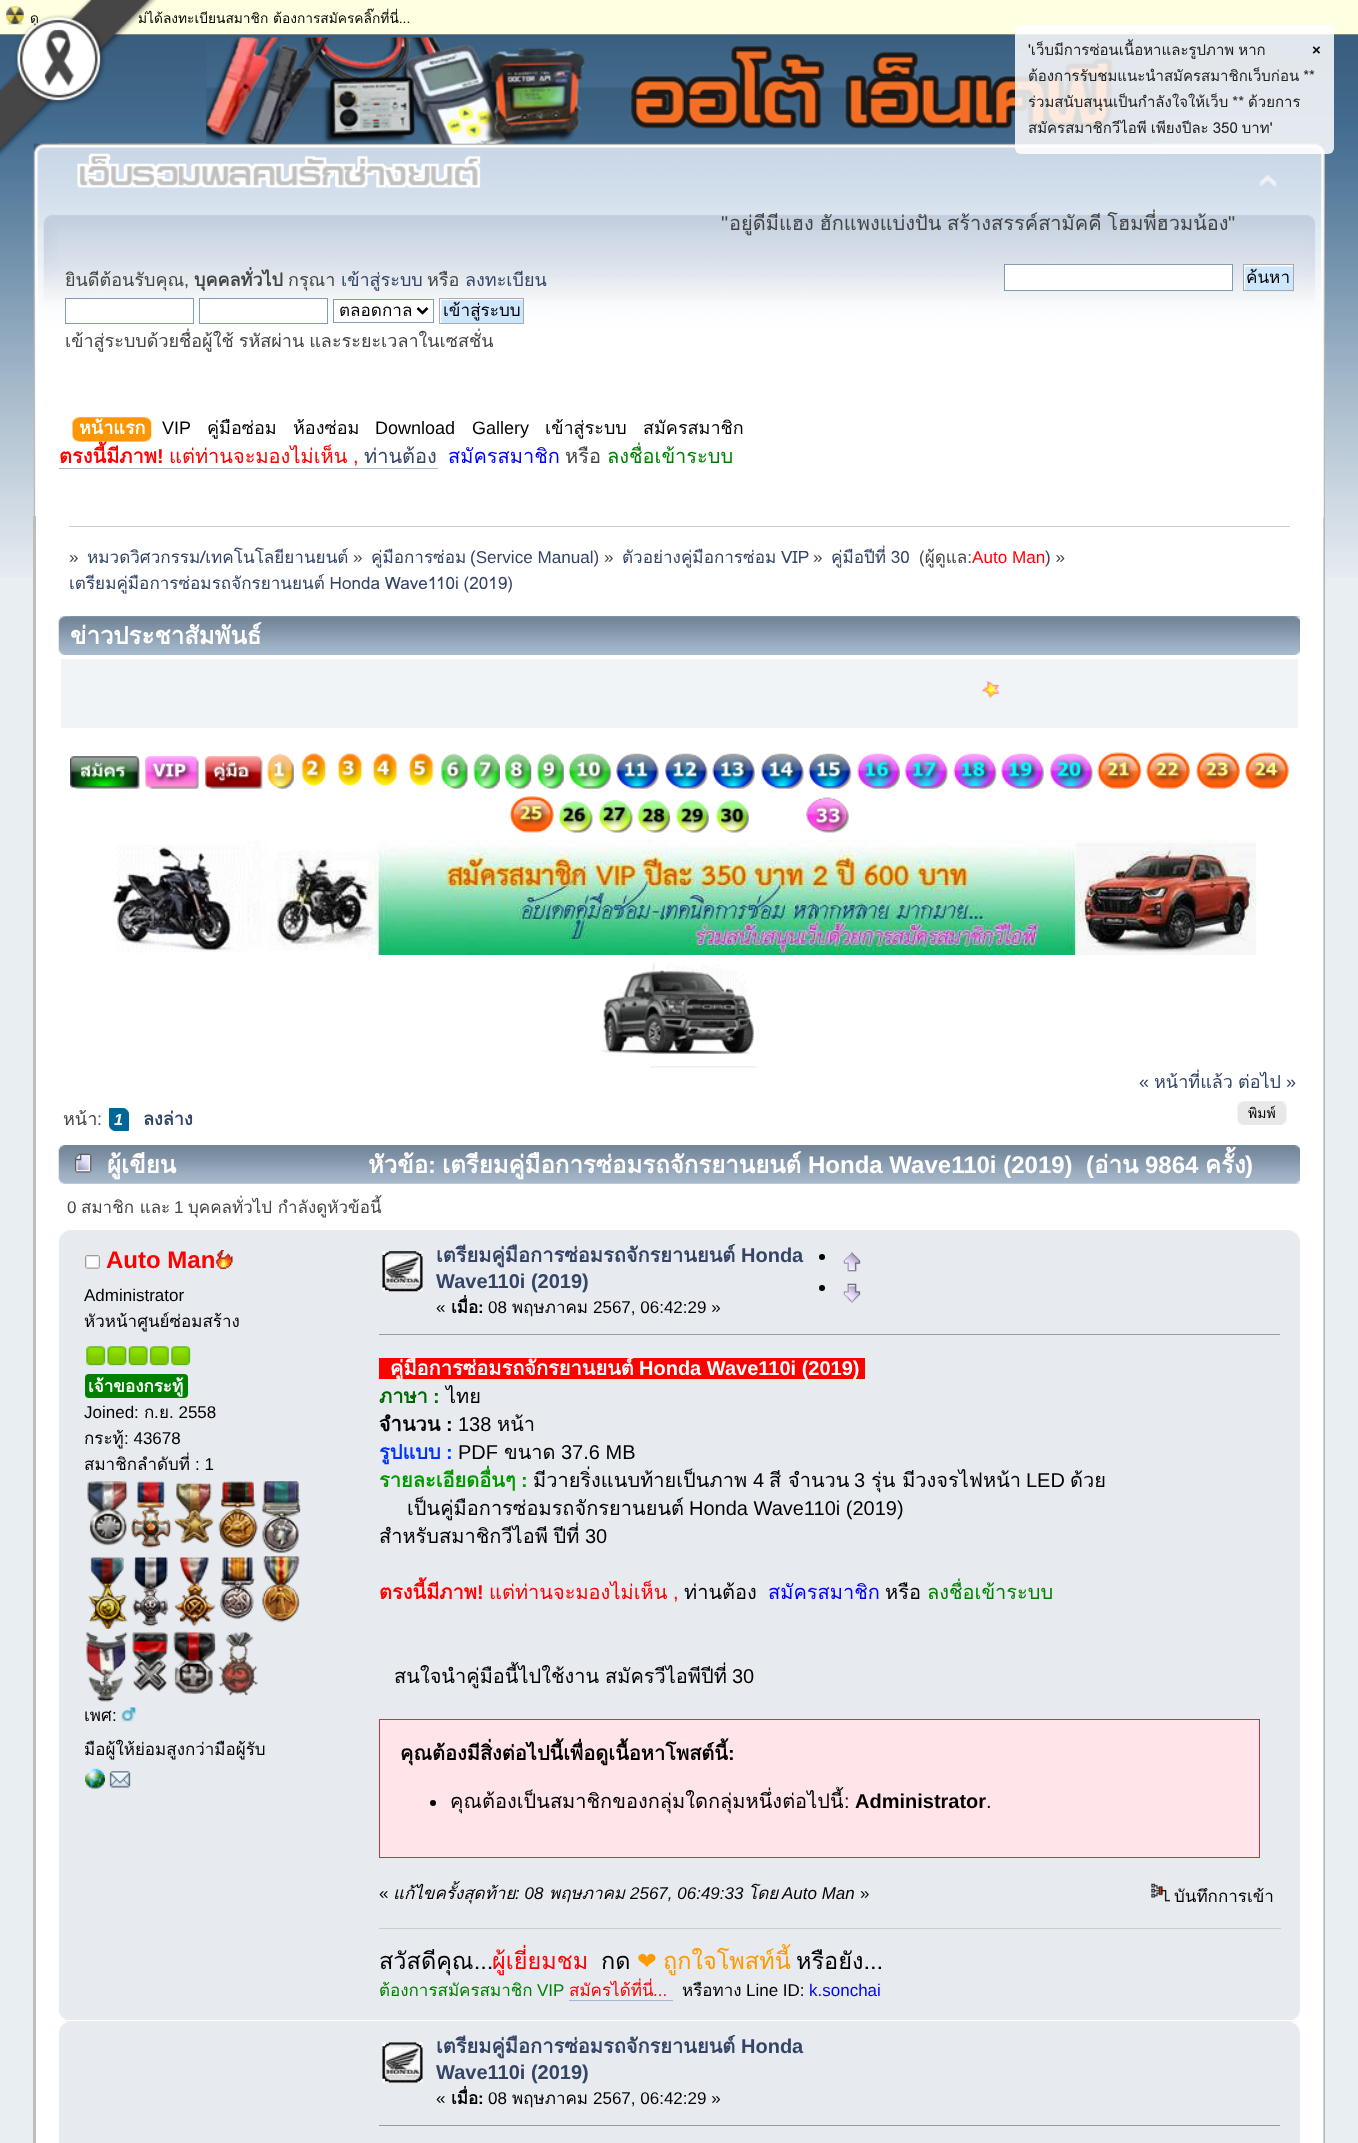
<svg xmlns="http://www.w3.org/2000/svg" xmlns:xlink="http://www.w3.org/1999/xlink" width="1358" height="2143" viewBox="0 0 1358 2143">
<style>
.cls-1{font:13.75px Loma;fill:#000000}
.cls-2{font:17.1px Liberation Sans;fill:#444444}
.cls-3{font:17.1px Loma;fill:#334466}
.cls-4{font:17.1px Liberation Sans;fill:#334466}
.cls-5{font:17.1px Loma;fill:#444444}
.cls-6{font:17.1px Liberation Sans;fill:#ff0101}
.cls-7{font:bold 24px Loma;fill:#ffffff}
.cls-8{font:18px Liberation Sans;fill:#334466}
.cls-9{font:18px Loma;fill:#334466}
.cls-10{font:18px Loma;fill:#444444}
.cls-11{font:18px Liberation Sans;fill:#444444}
.cls-12{font:italic bold 16px Liberation Sans;fill:#ffffff}
.cls-13{font:bold 18px Loma;fill:#334466}
.cls-14{font:14px Loma;fill:#000000}
.cls-15{font:bold 24px Liberation Sans;fill:#ffffff}
.cls-16{font:17px Liberation Sans;fill:#444444}
.cls-17{font:17px Loma;fill:#444444}
.cls-18{font:bold 24px Liberation Sans;fill:#ff0101}
.cls-19{font:17px Liberation Sans;fill:#000000}
.cls-20{font:17px Loma;fill:#000000}
.cls-21{font:bold 17px Loma;fill:#ffffff}
.cls-22{font:bold 20px Loma;fill:#334466}
.cls-23{font:bold 20px Liberation Sans;fill:#334466}
.cls-24{font:bold 17px Loma;fill:#000000}
.cls-25{font:bold 17px Liberation Sans;fill:#000000}
.cls-26{font:bold 20px Loma;fill:#ffffff}
.cls-27{font:bold 20px Liberation Sans;fill:#ffffff}
.cls-28{font:bold 20px Loma;fill:#006600}
.cls-29{font:bold 20px Liberation Sans;fill:#006600}
.cls-30{font:20px Loma;fill:#000000}
.cls-31{font:bold 20px Loma;fill:#000000}
.cls-32{font:bold 20px Liberation Sans;fill:#000000}
.cls-33{font:20px Liberation Sans;fill:#000000}
.cls-34{font:bold 20px Loma;fill:#0033ff}
.cls-35{font:bold 20px Liberation Sans;fill:#0033ff}
.cls-36{font:bold 20px Loma;fill:#009900}
.cls-37{font:bold 20px Liberation Sans;fill:#009900}
.cls-38{font:bold 20px Loma;fill:#ff0101}
.cls-39{font:bold 20px Liberation Sans;fill:#ff0101}
.cls-40{font:20px Loma;fill:#ff0101}
.cls-41{font:20px Liberation Sans;fill:#ff0101}
.cls-42{font:20px Loma;fill:#0000ff}
.cls-43{font:20px Loma;fill:#008000}
.cls-44{font:italic 17px Loma;fill:#000000}
.cls-45{font:italic 17px Liberation Sans;fill:#000000}
.cls-46{font:23.5px Loma;fill:#000000}
.cls-47{font:23.5px Loma;fill:#ff0101}
.cls-48{font:23.5px DejaVu Sans;fill:#ff9900}
.cls-49{font:23.5px Loma;fill:#ff9900}
.cls-50{font:17px Loma;fill:#008000}
.cls-51{font:17px Liberation Sans;fill:#008000}
.cls-52{font:17px Loma;fill:#ff0101}
.cls-53{font:17px Liberation Sans;fill:#ff0101}
.cls-54{font:17px Liberation Sans;fill:#0000ff}
.cls-55{font:20px Liberation Sans;fill:#444444}
.cls-56{font:20px Loma;fill:#444444}
.cls-57{font:bold 18px Loma;fill:#444444}
.cls-58{font:17.1px Loma;fill:#000000}
.cls-59{font:18px Liberation Sans;fill:#000000}
.cls-60{font:18px Loma;fill:#000000}
.cls-61{font:bold 18px Loma;fill:#ffffff}
.cls-62{font:20px Loma;fill:#334466}
.cls-63{font:15px Loma;fill:#222323}
.cls-64{font:bold 15px Liberation Sans;fill:#090e13}
</style>
<defs>
<clipPath id="clip1"><rect x="70" y="616" width="1230" height="39"/></clipPath>
<clipPath id="clip2"><rect x="379" y="1331" width="921" height="552"/></clipPath>
<clipPath id="clip3"><rect x="379" y="1929" width="902" height="77"/></clipPath>
<clipPath id="clip4"><rect x="65" y="264" width="614" height="94"/></clipPath>
<clipPath id="clip5"><rect x="1244" y="265" width="49" height="25"/></clipPath>
</defs>
<rect width="100%" height="100%" fill="#e9eef2"/>
<image xlink:href="image0.png" x="0" y="35" width="1358" height="542"/>
<rect fill="#ffffff" x="36" y="516" width="1289" height="1627"/>
<rect fill="#bebebe" x="33" y="516" width="3" height="1627"/>
<image xlink:href="image2.png" x="1323" y="516" width="2" height="1627"/>
<rect fill="#ffffe1" x="0" y="0" width="1358" height="34"/>
<rect fill="#868686" x="0" y="34" width="1358" height="1"/>
<image xlink:href="image3.png" x="6" y="6" width="18" height="19"/>
<rect fill="#cccccc" x="69" y="526" width="1221" height="1"/>
<image xlink:href="image4.png" x="58" y="616" width="1242" height="39"/>
<image xlink:href="image5.png" x="70" y="616" width="1230" height="39"/>
<rect fill="#f0f4f7" x="61" y="659" width="1237" height="69"/>
<image xlink:href="image6.png" x="982" y="681" width="18" height="18"/>
<image xlink:href="image7.png" x="70" y="756" width="70" height="33"/>
<image xlink:href="image8.png" x="145" y="756" width="54" height="33"/>
<image xlink:href="image9.png" x="205" y="756" width="58" height="33"/>
<image xlink:href="image10.png" x="267" y="753" width="27" height="36"/>
<image xlink:href="image11.png" x="301" y="752" width="26" height="35"/>
<image xlink:href="image12.png" x="337" y="752" width="26" height="35"/>
<image xlink:href="image13.png" x="372" y="752" width="26" height="35"/>
<image xlink:href="image14.png" x="408" y="752" width="27" height="35"/>
<image xlink:href="image15.png" x="441" y="753" width="27" height="36"/>
<image xlink:href="image16.png" x="473" y="753" width="27" height="36"/>
<image xlink:href="image17.png" x="505" y="753" width="27" height="36"/>
<image xlink:href="image18.png" x="537" y="753" width="27" height="36"/>
<image xlink:href="image19.png" x="568" y="753" width="44" height="36"/>
<image xlink:href="image20.png" x="616" y="753" width="43" height="36"/>
<image xlink:href="image21.png" x="665" y="753" width="43" height="36"/>
<image xlink:href="image22.png" x="712" y="753" width="43" height="36"/>
<image xlink:href="image23.png" x="761" y="753" width="43" height="36"/>
<image xlink:href="image24.png" x="808" y="753" width="44" height="36"/>
<image xlink:href="image25.png" x="857" y="753" width="43" height="36"/>
<image xlink:href="image26.png" x="905" y="753" width="43" height="36"/>
<image xlink:href="image27.png" x="953" y="753" width="44" height="36"/>
<image xlink:href="image28.png" x="1001" y="753" width="43" height="36"/>
<image xlink:href="image29.png" x="1050" y="753" width="43" height="36"/>
<image xlink:href="image30.png" x="1097" y="752" width="45" height="37"/>
<image xlink:href="image31.png" x="1146" y="752" width="44" height="37"/>
<image xlink:href="image32.png" x="1196" y="752" width="44" height="37"/>
<image xlink:href="image33.png" x="1245" y="752" width="44" height="37"/>
<image xlink:href="image34.png" x="510" y="796" width="44" height="37"/>
<image xlink:href="image35.png" x="558" y="801" width="35" height="32"/>
<image xlink:href="image36.png" x="598" y="800" width="35" height="33"/>
<image xlink:href="image37.png" x="637" y="800" width="34" height="33"/>
<image xlink:href="image38.png" x="676" y="800" width="33" height="33"/>
<image xlink:href="image39.png" x="716" y="800" width="33" height="33"/>
<image xlink:href="image40.png" x="806" y="797" width="43" height="36"/>
<image xlink:href="image41.png" x="111" y="845" width="137" height="108"/>
<image xlink:href="image42.png" x="247" y="840" width="1010" height="115"/>
<image xlink:href="image43.png" x="601" y="962" width="156" height="106"/>
<path fill="#006699" stroke="#006699" d="M109.5 1108.5H123C126 1108.5 128.5 1111 128.5 1114V1130.5H115C112 1130.5 109.5 1128 109.5 1125Z"/>
<image xlink:href="image44.png" x="1237" y="1101" width="50" height="24"/>
<image xlink:href="image45.png" x="1282" y="1101" width="5" height="24"/>
<image xlink:href="image46.png" x="58" y="1145" width="1242" height="39"/>
<image xlink:href="image47.png" x="1294" y="1145" width="6" height="39"/>
<image xlink:href="image48.png" x="74" y="1153" width="18" height="20"/>
<rect fill="#e7eaef" x="59" y="1230" width="1241" height="790"/>
<image xlink:href="image49.png" x="58" y="1230" width="11" height="13"/>
<image xlink:href="image50.png" x="1289" y="1230" width="11" height="10"/>
<image xlink:href="image51.png" x="85" y="1255" width="15" height="14"/>
<image xlink:href="image52.png" x="216" y="1250" width="17" height="19"/>
<image xlink:href="image53.png" x="86" y="1346" width="20" height="20"/>
<image xlink:href="image54.png" x="107" y="1346" width="20" height="20"/>
<image xlink:href="image55.png" x="128" y="1346" width="20" height="20"/>
<image xlink:href="image56.png" x="149" y="1346" width="20" height="20"/>
<image xlink:href="image53.png" x="171" y="1346" width="20" height="20"/>
<rect fill="#008000" x="85" y="1374" width="103" height="24" rx="4"/>
<image xlink:href="image57.png" x="87" y="1481" width="41" height="65"/>
<image xlink:href="image58.png" x="131" y="1481" width="41" height="67"/>
<image xlink:href="image59.png" x="173" y="1482" width="41" height="62"/>
<image xlink:href="image60.png" x="218" y="1481" width="40" height="67"/>
<image xlink:href="image61.png" x="262" y="1481" width="39" height="72"/>
<image xlink:href="image62.png" x="88" y="1557" width="40" height="72"/>
<image xlink:href="image63.png" x="132" y="1557" width="37" height="70"/>
<image xlink:href="image64.png" x="174" y="1557" width="42" height="70"/>
<image xlink:href="image65.png" x="219" y="1556" width="37" height="64"/>
<image xlink:href="image66.png" x="261" y="1556" width="39" height="67"/>
<image xlink:href="image67.png" x="85" y="1631" width="43" height="71"/>
<image xlink:href="image68.png" x="132" y="1632" width="36" height="60"/>
<image xlink:href="image69.png" x="172" y="1631" width="44" height="63"/>
<image xlink:href="image70.png" x="218" y="1631" width="40" height="65"/>
<image xlink:href="image71.png" x="121" y="1707" width="16" height="15"/>
<image xlink:href="image72.png" x="85" y="1768" width="20" height="21"/>
<image xlink:href="image73.png" x="109" y="1771" width="22" height="17"/>
<image xlink:href="image74.png" x="382" y="1251" width="41" height="41"/>
<circle fill="#000000" cx="822" cy="1257" r="3"/>
<image xlink:href="image75.png" x="843" y="1252" width="18" height="20"/>
<circle fill="#000000" cx="822" cy="1288" r="3"/>
<image xlink:href="image76.png" x="843" y="1283" width="18" height="20"/>
<rect fill="#9999aa" x="379" y="1334" width="901" height="1"/>
<rect fill="#ff0000" x="379" y="1358" width="486" height="21"/>
<rect fill="#ffe4e9" stroke="#cc3344" x="379.5" y="1719.5" width="880" height="138"/>
<circle fill="#000000" cx="433" cy="1803" r="3"/>
<image xlink:href="image77.png" x="1151" y="1883" width="19" height="19"/>
<rect fill="#cccccc" x="379" y="1928" width="902" height="1"/>
<rect fill="#a8b6cf" x="569" y="2000" width="104" height="1"/>
<image xlink:href="image78.png" x="58" y="2007" width="8" height="13"/>
<image xlink:href="image79.png" x="1293" y="2011" width="7" height="9"/>
<rect fill="#e7eaef" x="59" y="2021" width="1241" height="122"/>
<image xlink:href="image80.png" x="58" y="2021" width="11" height="14"/>
<image xlink:href="image81.png" x="1290" y="2021" width="10" height="10"/>
<image xlink:href="image82.png" x="382" y="2042" width="41" height="41"/>
<rect fill="#9999aa" x="379" y="2125" width="901" height="1"/>
<image xlink:href="image83.png" x="33" y="143" width="1292" height="373"/>
<image xlink:href="image84.png" x="58" y="143" width="1267" height="373"/>
<image xlink:href="image85.png" x="77" y="153" width="404" height="35"/>
<image xlink:href="image86.png" x="1259" y="175" width="18" height="14"/>
<rect fill="#ffffff" x="66" y="299" width="127" height="20"/>
<rect fill="none" stroke="#7f9db9" x="65.5" y="298.5" width="128" height="25"/>
<rect fill="#ffffff" x="200" y="299" width="127" height="20"/>
<rect fill="none" stroke="#7f9db9" x="199.5" y="298.5" width="128" height="25"/>
<rect fill="#ffffff" x="334" y="300" width="99" height="19"/>
<rect fill="none" stroke="#7f9db9" x="333.5" y="299.5" width="100" height="23"/>
<path fill="none" stroke="#000000" stroke-width="2.5" d="M417.5 308L422.5 313L427.5 308"/>
<image xlink:href="image87.png" x="440" y="299" width="83" height="24"/>
<rect fill="none" stroke="#aaaaaa" x="439.5" y="298.5" width="84" height="25"/>
<rect fill="#ffffff" stroke="#7f9db9" x="1004.5" y="264.5" width="228" height="26"/>
<image xlink:href="image88.png" x="1243" y="265" width="51" height="27"/>
<rect fill="none" stroke="#aaaaaa" x="1243.5" y="264.5" width="50" height="26"/>
<rect fill="#a8b6cf" x="59" y="468" width="379" height="1"/>
<image xlink:href="image91.png" x="206" y="37" width="948" height="107"/>
<rect fill="#ffffff" fill-opacity="0.85" x="1015" y="25" width="319" height="129" rx="6"/>
<text class="cls-1" x="30" y="23">ดู</text>
<text class="cls-1" x="138" y="23">ม่ได้ลงทะเบียนสมาชิก</text>
<image xlink:href="image1.png" x="0" y="0" width="157" height="157"/>
<text class="cls-1" x="273" y="23">ต้องการสมัครคลิ๊กที่นี่...</text>
<text class="cls-2" x="69" y="563">»</text>
<text class="cls-3" x="87" y="563">หมวดวิศวกรรม/เทคโนโลยียานยนต์</text>
<text class="cls-2" x="353" y="563">»</text>
<text class="cls-3" x="371" y="563">คู่มือการซ่อม</text>
<text class="cls-4" x="470" y="563">(Service Manual)</text>
<text class="cls-2" x="604" y="563">»</text>
<text class="cls-3" x="622" y="563" word-spacing="-1">ตัวอย่างคู่มือการซ่อม VIP</text>
<text class="cls-2" x="813" y="563">»</text>
<text class="cls-3" x="831" y="563" word-spacing="-1">คู่มือปีที่ 30</text>
<text class="cls-5" x="919" y="563">(ผู้ดูแล:</text>
<text class="cls-6" x="972" y="563">Auto Man</text>
<text class="cls-2" x="1045" y="563">) »</text>
<text class="cls-3" x="69" y="589" word-spacing="-1">เตรียมคู่มือการซ่อมรถจักรยานยนต์ Honda Wave110i (2019)</text>
<g clip-path="url(#clip1)">
<text class="cls-7" x="70" y="644">ข่าวประชาสัมพันธ์</text>
</g>
<text class="cls-8" x="1139" y="1088">«</text>
<text class="cls-9" x="1154" y="1088">หน้าที่แล้ว</text>
<text class="cls-9" x="1238" y="1088">ต่อไป</text>
<text class="cls-8" x="1286" y="1088">»</text>
<text class="cls-10" x="63" y="1125">หน้า</text>
<text class="cls-11" x="97" y="1125">:</text>
<text class="cls-12" x="114" y="1125">1</text>
<text class="cls-13" x="143" y="1125">ลงล่าง</text>
<text class="cls-14" x="1248" y="1118">พิมพ์</text>
<text class="cls-7" x="107" y="1173">ผู้เขียน</text>
<text class="cls-7" x="368" y="1173">หัวข้อ</text>
<text class="cls-15" x="428" y="1173">:</text>
<text class="cls-7" x="442" y="1173">เตรียมคู่มือการซ่อมรถจักรยานยนต์</text>
<text class="cls-15" xml:space="preserve" x="808" y="1173">Honda Wave110i (2019)  (</text>
<text class="cls-7" x="1094" y="1173">อ่าน</text>
<text class="cls-15" x="1145" y="1173">9864</text>
<text class="cls-7" x="1205" y="1173">ครั้ง</text>
<text class="cls-15" x="1245" y="1173">)</text>
<text class="cls-16" x="67" y="1213">0</text>
<text class="cls-17" x="81" y="1213">สมาชิก และ</text>
<text class="cls-16" x="174" y="1213">1</text>
<text class="cls-17" x="188" y="1213">บุคคลทั่วไป กำลังดูหัวข้อนี้</text>
<text class="cls-18" x="106" y="1268">Auto Man</text>
<text class="cls-19" x="84" y="1301">Administrator</text>
<text class="cls-20" x="84" y="1327">หัวหน้าศูนย์ซ่อมสร้าง</text>
<text class="cls-21" x="88" y="1392">เจ้าของกระทู้</text>
<text class="cls-19" x="84" y="1418">Joined:</text>
<text class="cls-20" x="144" y="1418">ก</text>
<text class="cls-19" x="154" y="1418">.</text>
<text class="cls-20" x="159" y="1418">ย</text>
<text class="cls-19" x="169" y="1418">. 2558</text>
<text class="cls-20" x="84" y="1444">กระทู้</text>
<text class="cls-19" x="124" y="1444">: 43678</text>
<text class="cls-20" x="84" y="1470">สมาชิกลำดับที่</text>
<text class="cls-19" x="195" y="1470">: 1</text>
<text class="cls-20" x="84" y="1721">เพศ</text>
<text class="cls-19" x="112" y="1721">:</text>
<text class="cls-20" x="84" y="1755">มือผู้ให้ย่อมสูงกว่ามือผู้รับ</text>
<text class="cls-22" x="436" y="1262">เตรียมคู่มือการซ่อมรถจักรยานยนต์</text>
<text class="cls-23" x="741" y="1262">Honda</text>
<text class="cls-23" x="436" y="1288">Wave110i (2019)</text>
<text class="cls-19" x="436" y="1313">«</text>
<text class="cls-24" x="451" y="1313">เมื่อ</text>
<text class="cls-25" x="478" y="1313">:</text>
<text class="cls-19" x="488" y="1313">08</text>
<text class="cls-20" x="512" y="1313">พฤษภาคม</text>
<text class="cls-19" x="593" y="1313">2567, 06:42:29 »</text>
<text class="cls-26" x="390" y="1375">คู่มือการซ่อมรถจักรยานยนต์</text>
<text class="cls-27" x="639" y="1375">Honda Wave110i (2019)</text>
<text class="cls-28" x="379" y="1403">ภาษา</text>
<text class="cls-29" x="433" y="1403">:</text>
<text class="cls-30" x="446" y="1403">ไทย</text>
<g clip-path="url(#clip2)">
<text class="cls-31" x="379" y="1431">จำนวน</text>
</g>
<text class="cls-32" x="446" y="1431">:</text>
<text class="cls-33" x="458" y="1431">138</text>
<text class="cls-30" x="497" y="1431">หน้า</text>
<g clip-path="url(#clip2)">
<text class="cls-34" x="379" y="1459">รูปแบบ</text>
</g>
<text class="cls-35" x="446" y="1459">:</text>
<text class="cls-33" x="458" y="1459">PDF</text>
<text class="cls-30" x="504" y="1459">ขนาด</text>
<text class="cls-33" x="561" y="1459">37.6 MB</text>
<text class="cls-36" x="379" y="1487">รายละเอียดอื่นๆ</text>
<text class="cls-33" x="753" y="1487">4</text>
<text class="cls-30" x="769" y="1487">สี จำนวน</text>
<text class="cls-33" x="854" y="1487">3</text>
<text class="cls-30" x="871" y="1487">รุ่น มีวงจรไฟหน้า</text>
<text class="cls-33" x="1026" y="1487">LED</text>
<text class="cls-30" x="1070" y="1487">ด้วย</text>
<text class="cls-37" x="521" y="1487">:</text>
<text class="cls-30" x="533" y="1487">มีวายริ่งแนบท้ายเป็นภาพ</text>
<text class="cls-30" x="407" y="1515">เป็นคู่มือการซ่อมรถจักรยานยนต์</text>
<text class="cls-33" x="689" y="1515">Honda Wave110i (2019)</text>
<g clip-path="url(#clip2)">
<text class="cls-30" x="379" y="1543" word-spacing="-1">สำหรับสมาชิกวีไอพี ปีที่</text>
</g>
<text class="cls-33" x="585" y="1543">30</text>
<text class="cls-38" x="379" y="1599">ตรงนี้มีภาพ</text>
<text class="cls-39" x="477" y="1599">!</text>
<text class="cls-40" x="489" y="1599">แต่ท่านจะมองไม่เห็น</text>
<text class="cls-41" x="673" y="1599">,</text>
<text class="cls-30" x="684" y="1599">ท่านต้อง</text>
<text class="cls-42" x="768" y="1599">สมัครสมาชิก</text>
<text class="cls-30" x="885" y="1599">หรือ</text>
<text class="cls-43" x="927" y="1599">ลงชื่อเข้าระบบ</text>
<text class="cls-30" x="394" y="1683" word-spacing="-1">สนใจนำคู่มือนี้ไปใช้งาน สมัครวีไอพีปีที่</text>
<text class="cls-33" x="732" y="1683">30</text>
<text class="cls-31" x="400" y="1760">คุณต้องมีสิ่งต่อไปนี้เพื่อดูเนื้อหาโพสต์นี้</text>
<text class="cls-32" x="728" y="1760">:</text>
<text class="cls-30" x="450" y="1808">คุณต้องเป็นสมาชิกของกลุ่มใดกลุ่มหนึ่งต่อไปนี้</text>
<text class="cls-33" x="844" y="1808">:</text>
<text class="cls-32" x="855" y="1808">Administrator</text>
<text class="cls-33" x="986" y="1808">.</text>
<text class="cls-19" x="379" y="1899">«</text>
<text class="cls-44" x="393" y="1899">แก้ไขครั้งสุดท้าย</text>
<text class="cls-45" x="515" y="1899">: 08</text>
<text class="cls-44" x="549" y="1899">พฤษภาคม</text>
<text class="cls-45" x="630" y="1899">2567, 06:49:33</text>
<text class="cls-44" x="748" y="1899">โดย</text>
<text class="cls-45" x="782" y="1899">Auto Man</text>
<text class="cls-19" x="860" y="1899">»</text>
<text class="cls-20" x="1174" y="1902">บันทึกการเข้า</text>
<text class="cls-46" x="379" y="1969">สวัสดีคุณ...</text>
<text class="cls-47" x="492" y="1969">ผู้เยี่ยมชม</text>
<text class="cls-46" x="601" y="1969">กด</text>
<text class="cls-48" x="637" y="1969">❤</text>
<text class="cls-49" x="663" y="1969">ถูกใจโพสท์นี้</text>
<text class="cls-46" x="796" y="1969">หรือยัง...</text>
<g clip-path="url(#clip3)">
<text class="cls-50" x="379" y="1996">ต้องการสมัครสมาชิก</text>
</g>
<text class="cls-51" x="537" y="1996">VIP</text>
<text class="cls-52" x="569" y="1996">สมัครได้ที่นี่</text>
<text class="cls-53" x="653" y="1996">...</text>
<text class="cls-20" x="682" y="1996">หรือทาง</text>
<text class="cls-19" x="746" y="1996">Line ID:</text>
<text class="cls-54" x="809" y="1996">k.sonchai</text>
<text class="cls-22" x="436" y="2053">เตรียมคู่มือการซ่อมรถจักรยานยนต์</text>
<text class="cls-23" x="741" y="2053">Honda</text>
<text class="cls-23" x="436" y="2079">Wave110i (2019)</text>
<text class="cls-19" x="436" y="2104">«</text>
<text class="cls-24" x="451" y="2104">เมื่อ</text>
<text class="cls-25" x="478" y="2104">:</text>
<text class="cls-19" x="488" y="2104">08</text>
<text class="cls-20" x="512" y="2104">พฤษภาคม</text>
<text class="cls-19" x="593" y="2104">2567, 06:42:29 »</text>
<text class="cls-55" x="721" y="230">"</text>
<text class="cls-56" x="729" y="230" word-spacing="-1">อยู่ดีมีแฮง ฮักแพงแบ่งปัน สร้างสรรค์สามัคคี โฮมพี่ฮวมน้อง</text>
<text class="cls-55" x="1228" y="230">"</text>
<g clip-path="url(#clip4)">
<text class="cls-10" x="65" y="286">ยินดีต้อนรับคุณ</text>
</g>
<text class="cls-11" x="184" y="286">,</text>
<text class="cls-57" x="194" y="286">บุคคลทั่วไป</text>
<text class="cls-10" x="288" y="286">กรุณา</text>
<text class="cls-9" x="341" y="286">เข้าสู่ระบบ</text>
<text class="cls-10" x="427" y="286">หรือ</text>
<text class="cls-9" x="465" y="286">ลงทะเบียน</text>
<text class="cls-58" x="339" y="316">ตลอดกาล</text>
<text class="cls-58" x="443" y="316">เข้าสู่ระบบ</text>
<g clip-path="url(#clip4)">
<text class="cls-10" x="65" y="347" word-spacing="-1">เข้าสู่ระบบด้วยชื่อผู้ใช้ รหัสผ่าน และระยะเวลาในเซสชั่น</text>
</g>
<g clip-path="url(#clip5)">
<text class="cls-58" x="1246" y="283">ค้นหา</text>
</g>
<text class="cls-59" x="162" y="434">VIP</text>
<text class="cls-60" x="207" y="434">คู่มือซ่อม</text>
<text class="cls-60" x="293" y="434">ห้องซ่อม</text>
<text class="cls-59" x="375" y="434">Download</text>
<text class="cls-59" x="472" y="434">Gallery</text>
<text class="cls-60" x="545" y="434">เข้าสู่ระบบ</text>
<text class="cls-60" x="643" y="434">สมัครสมาชิก</text>
<text class="cls-38" x="59" y="463">ตรงนี้มีภาพ</text>
<image xlink:href="image89.png" x="78" y="417" width="74" height="25"/>
<image xlink:href="image90.png" x="72" y="417" width="73" height="25"/>
<text class="cls-61" x="79" y="434">หน้าแรก</text>
<text class="cls-39" x="157" y="463">!</text>
<text class="cls-40" x="169" y="463">แต่ท่านจะมองไม่เห็น</text>
<text class="cls-41" x="353" y="463">,</text>
<text class="cls-62" x="364" y="463">ท่านต้อง</text>
<text class="cls-42" x="448" y="463">สมัครสมาชิก</text>
<text class="cls-56" x="565" y="463">หรือ</text>
<text class="cls-43" x="607" y="463">ลงชื่อเข้าระบบ</text>
<text class="cls-63"><tspan x="1028" y="55" word-spacing="-1">'เว็บมีการซ่อนเนื้อหาและรูปภาพ หาก</tspan><tspan x="1028" y="81" word-spacing="-1">ต้องการรับชมแนะนำสมัครสมาชิกเว็บก่อน **</tspan><tspan x="1028" y="107" word-spacing="-1">ร่วมสนับสนุนเป็นกำลังใจให้เว็บ ** ด้วยการ</tspan><tspan x="1028" y="133" word-spacing="-1">สมัครสมาชิกวีไอพี เพียงปีละ 350 บาท'</tspan></text>
<text class="cls-64" x="1312" y="55">×</text>
</svg>
